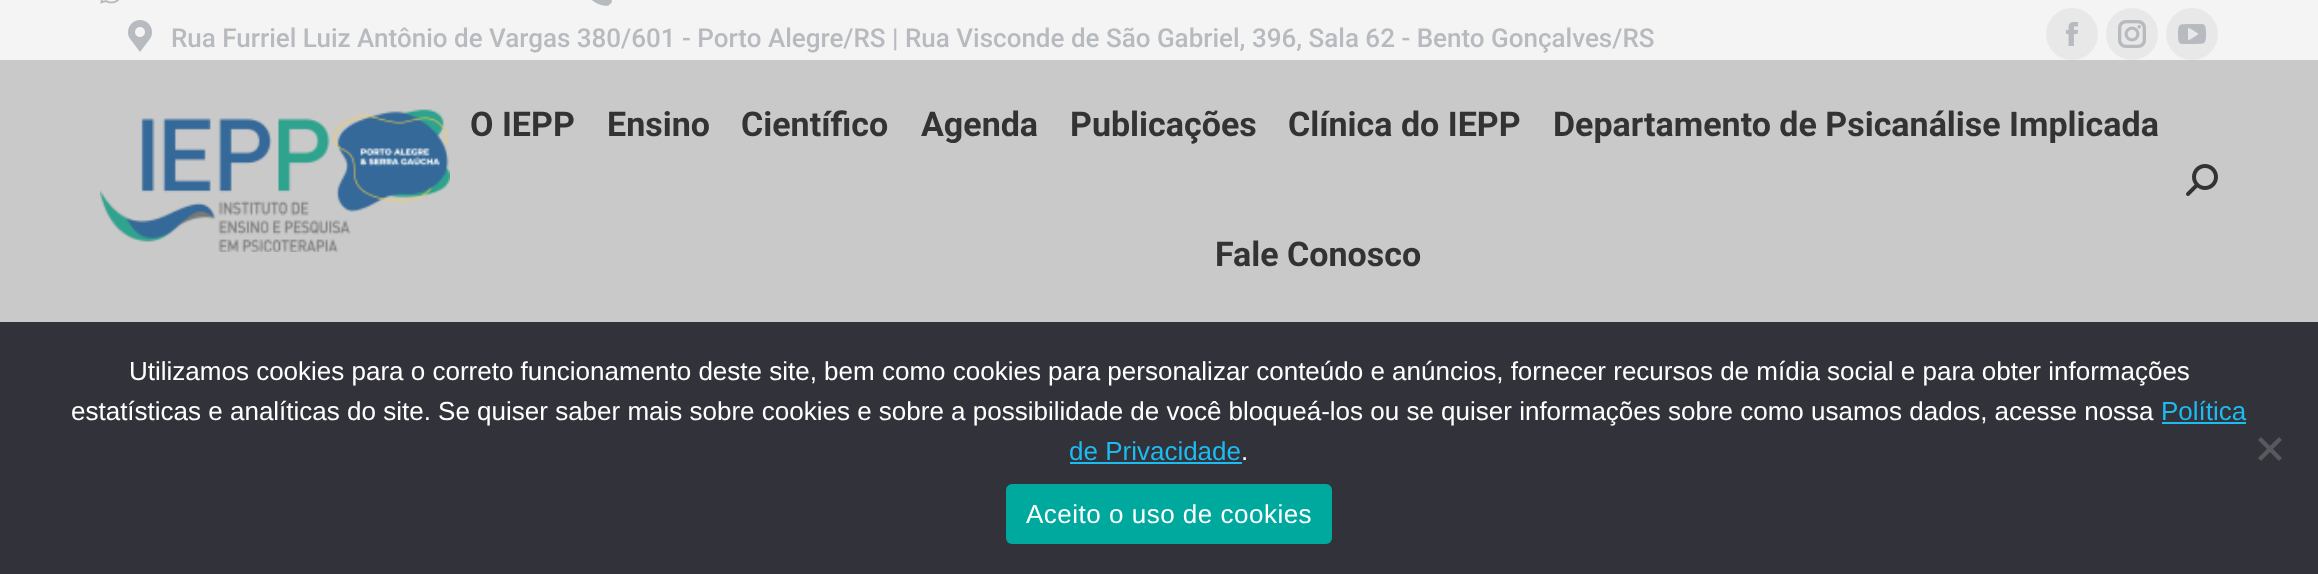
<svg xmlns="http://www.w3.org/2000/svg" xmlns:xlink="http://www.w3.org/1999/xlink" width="2318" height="574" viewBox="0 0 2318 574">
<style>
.cls-1{font:500 26px Roboto;fill:#b7babe}
.cls-2{font:bold 34px Roboto;fill:#333333}
.cls-3{font:26px Liberation Sans;fill:#ffffff}
.cls-4{font:26px Liberation Sans;fill:#1ebbf0}
.cls-5{font:26px Liberation Sans;letter-spacing:0.5px;fill:#ffffff}
</style>
<rect width="100%" height="100%" fill="#c9c9c9"/>
<rect fill="#f4f4f4" x="0" y="0" width="2318" height="60"/>
<image xlink:href="image0.png" x="100" y="0" width="20" height="4"/>
<image xlink:href="image1.png" x="592" y="0" width="20" height="6"/>
<image xlink:href="image2.png" x="128" y="20" width="24" height="32"/>
<circle fill="#e8e8e9" cx="2072" cy="34" r="26"/>
<image xlink:href="image3.png" x="2066" y="22" width="12" height="24"/>
<circle fill="#e8e8e9" cx="2132" cy="34" r="26"/>
<image xlink:href="image4.png" x="2118" y="20" width="28" height="28"/>
<circle fill="#e8e8e9" cx="2192" cy="34" r="26"/>
<image xlink:href="image5.png" x="2178" y="24" width="28" height="20"/>
<image xlink:href="image6.png" x="100" y="109" width="350" height="143"/>
<image xlink:href="image7.png" x="2186" y="164" width="32" height="32"/>
<rect fill="#32323a" x="0" y="322" width="2318" height="252"/>
<rect fill="#1ebbf0" x="2162" y="422" width="84" height="2"/>
<rect fill="#1ebbf0" x="1070" y="462" width="172" height="2"/>
<path fill="#59595d" d="M2279 437L2282 440L2261 461L2258 458Z"/>
<path fill="#59595d" d="M2258 440L2261 437L2282 458L2279 461Z"/>
<rect fill="#00a99d" x="1006" y="484" width="326" height="60" rx="6"/>
<text class="cls-1" x="171" y="47">Rua Furriel Luiz Antônio de Vargas 380/601 - Porto Alegre/RS | Rua Visconde de São Gabriel, 396, Sala 62 - Bento Gonçalves/RS</text>
<text class="cls-2" x="470" y="136">O IEPP</text>
<text class="cls-2" x="607" y="136">Ensino</text>
<text class="cls-2" x="741" y="136">Científico</text>
<text class="cls-2" x="921" y="136">Agenda</text>
<text class="cls-2" x="1070" y="136">Publicações</text>
<text class="cls-2" x="1288" y="136">Clínica do IEPP</text>
<text class="cls-2" x="1553" y="136">Departamento de Psicanálise Implicada</text>
<text class="cls-2" x="1215" y="266">Fale Conosco</text>
<text class="cls-3" x="129" y="380">Utilizamos cookies para o correto funcionamento deste site, bem como cookies para personalizar conteúdo e anúncios, fornecer recursos de mídia social e para obter informações</text>
<text class="cls-3" x="71" y="420">estatísticas e analíticas do site. Se quiser saber mais sobre cookies e sobre a possibilidade de você bloqueá-los ou se quiser informações sobre como usamos dados, acesse nossa</text>
<text class="cls-4" x="2161" y="420">Política</text>
<text class="cls-4" x="1069" y="460">de Privacidade</text>
<text class="cls-3" x="1241" y="460">.</text>
<text class="cls-5" x="1026" y="523">Aceito o uso de cookies</text>
</svg>
